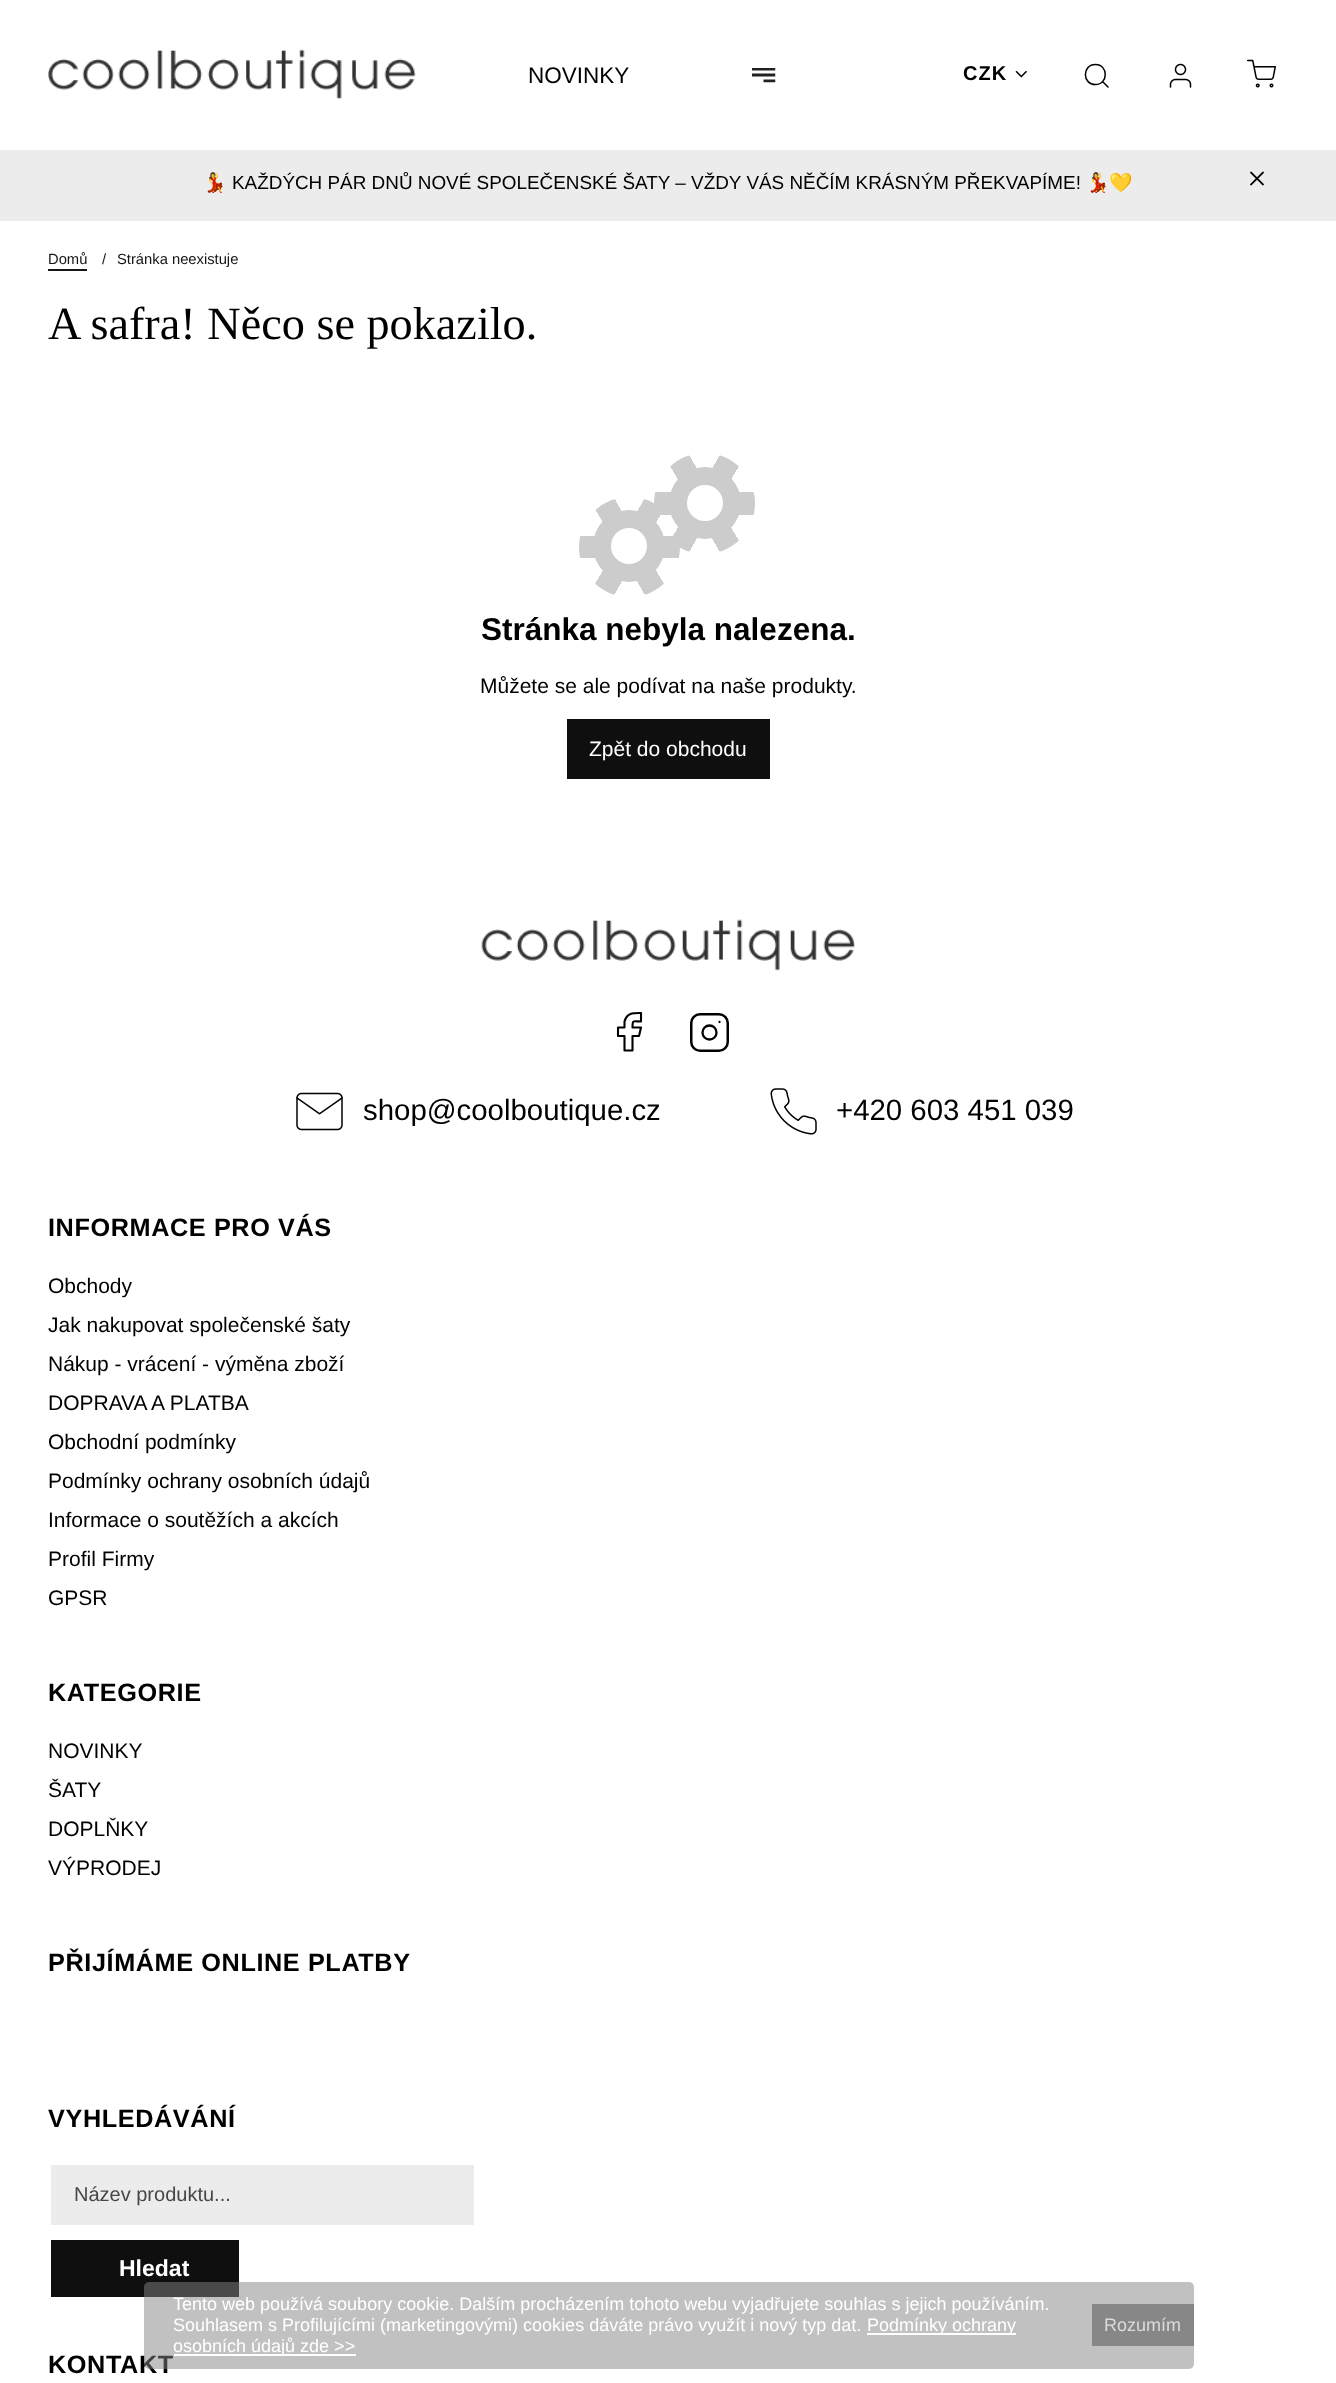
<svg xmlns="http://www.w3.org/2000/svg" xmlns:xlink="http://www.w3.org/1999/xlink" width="1336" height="2383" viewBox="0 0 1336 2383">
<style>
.cls-1{font:22.5px Liberation Sans;fill:#000000}
.cls-2{font:bold 20px Liberation Sans;letter-spacing:1px;fill:#000000}
.cls-3{font:18.9px Noto Color Emoji;fill:#000000}
.cls-4{font:18.9px Liberation Sans;fill:#000000}
.cls-5{font:14.75px Liberation Sans;fill:#151515}
.cls-6{font:46.25px Liberation Serif;fill:#000000}
.cls-7{font:bold 31.5px Liberation Sans;fill:#000000}
.cls-8{font:21px Liberation Sans;fill:#000000}
.cls-9{font:21px Liberation Sans;fill:#ffffff}
.cls-10{font:29.4px Liberation Sans;fill:#000000}
.cls-11{font:bold 25.25px Liberation Sans;letter-spacing:0.6px;fill:#000000}
.cls-12{font:20px Liberation Sans;fill:#474747}
.cls-13{font:bold 23px Liberation Sans;fill:#ffffff}
.cls-14{font:18px Liberation Sans;fill:#ffffff}
.cls-15{font:18px Liberation Sans;fill:#dbdbdb}
</style>
<defs>
<linearGradient id="g1" gradientUnits="userSpaceOnUse" x1="570" y1="512" x2="689" y2="581"><stop offset="0.42" stop-color="#cccccc" stop-opacity="0"/><stop offset="0.42" stop-color="#cccccc"/><stop offset="0.58" stop-color="#cccccc"/><stop offset="0.58" stop-color="#cccccc" stop-opacity="0"/></linearGradient>
<linearGradient id="g2" gradientUnits="userSpaceOnUse" x1="570" y1="581" x2="689" y2="512"><stop offset="0.42" stop-color="#cccccc" stop-opacity="0"/><stop offset="0.42" stop-color="#cccccc"/><stop offset="0.58" stop-color="#cccccc"/><stop offset="0.58" stop-color="#cccccc" stop-opacity="0"/></linearGradient>
<clipPath id="clip1"><rect x="579" y="497" width="101" height="100" rx="50"/></clipPath>
<linearGradient id="g3" gradientUnits="userSpaceOnUse" x1="645" y1="469" x2="764" y2="538"><stop offset="0.42" stop-color="#cccccc" stop-opacity="0"/><stop offset="0.42" stop-color="#cccccc"/><stop offset="0.58" stop-color="#cccccc"/><stop offset="0.58" stop-color="#cccccc" stop-opacity="0"/></linearGradient>
<linearGradient id="g4" gradientUnits="userSpaceOnUse" x1="645" y1="538" x2="764" y2="469"><stop offset="0.42" stop-color="#cccccc" stop-opacity="0"/><stop offset="0.42" stop-color="#cccccc"/><stop offset="0.58" stop-color="#cccccc"/><stop offset="0.58" stop-color="#cccccc" stop-opacity="0"/></linearGradient>
<clipPath id="clip2"><rect x="654" y="453" width="101" height="101" rx="50.5"/></clipPath>
</defs>
<rect width="100%" height="100%" fill="#ffffff"/>
<image xlink:href="image0.png" x="752" y="68" width="24" height="15"/>
<image xlink:href="image1.png" x="48" y="49" width="368" height="50"/>
<image xlink:href="image2.png" x="1015" y="70" width="12" height="8"/>
<path fill="none" stroke="#000000" stroke-width="1.5" stroke-linecap="round" stroke-linejoin="round" d="M1095.5 84.5C1108.5 84.5 1108.5 64.5 1095.5 64.5C1082 64.5 1082 84.5 1095.5 84.5ZM1108 87L1102.5 81.5"/>
<image xlink:href="image3.png" x="1169" y="63" width="23" height="25"/>
<image xlink:href="image4.png" x="1247" y="59" width="29" height="29"/>
<rect fill="#ececec" x="0" y="150" width="1336" height="71"/>
<image xlink:href="image5.png" x="1250" y="171" width="14" height="15"/>
<rect fill="#151515" x="48" y="269" width="39" height="2"/>
<circle fill="#cccccc" cx="629" cy="546" r="36"/>
<rect fill="url(#g1)" x="579" y="497" width="101" height="100" rx="50"/>
<rect fill="url(#g2)" x="579" y="497" width="101" height="100" rx="50"/>
<g clip-path="url(#clip1)">
<rect fill="#cccccc" x="579" y="536" width="101" height="22"/>
</g>
<circle fill="#ffffff" cx="629" cy="546" r="18"/>
<circle fill="#cccccc" cx="705" cy="503" r="36"/>
<circle fill="url(#g3)" cx="704.5" cy="503.5" r="50.5"/>
<circle fill="url(#g4)" cx="704.5" cy="503.5" r="50.5"/>
<g clip-path="url(#clip2)">
<rect fill="#cccccc" x="654" y="492" width="101" height="23"/>
</g>
<circle fill="#ffffff" cx="705" cy="503" r="18"/>
<rect fill="#0f0f0f" x="567" y="719" width="203" height="60"/>
<image xlink:href="image6.png" x="481" y="919" width="374" height="52"/>
<path fill="none" stroke="#000000" stroke-width="2.1" stroke-linecap="round" stroke-linejoin="round" d="M618 1027.5V1036H624.5V1050.5H632.5V1036H639L641 1027.5H632.5C632.5 1019.5 633 1021.5 641 1021.5V1013C634 1013 626.5 1012.5 624.5 1021.5V1027.5H618"/>
<rect fill="none" stroke="#000000" stroke-width="2.5" x="691.25" y="1014.25" width="36.5" height="36.5" rx="8.75"/>
<circle fill="none" stroke="#000000" stroke-width="2.3" cx="709.5" cy="1032.5" r="7"/>
<path fill="none" stroke="#000000" stroke-width="2.3" stroke-linecap="round" stroke-linejoin="round" d="M719.5 1022H719.5"/>
<image xlink:href="image7.png" x="296" y="1092" width="47" height="39"/>
<image xlink:href="image8.png" x="770" y="1088" width="47" height="47"/>
<rect fill="#ececec" x="51" y="2165" width="423" height="60"/>
<rect fill="#0f0f0f" x="51" y="2240" width="188" height="57"/>
<text class="cls-1" x="528" y="83">NOVINKY</text>
<text class="cls-2" x="963" y="80">CZK</text>
<text class="cls-3" x="203" y="189">💃</text>
<text class="cls-4" x="232" y="189">KAŽDÝCH PÁR DNŮ NOVÉ SPOLEČENSKÉ ŠATY – VŽDY VÁS NĚČÍM KRÁSNÝM PŘEKVAPÍME!</text>
<text class="cls-3" x="1086" y="189">💃💛</text>
<text class="cls-5" x="48" y="264">Domů</text>
<text class="cls-5" x="102" y="264">/</text>
<text class="cls-5" x="117" y="264">Stránka neexistuje</text>
<text class="cls-6" x="48" y="339">A safra! Něco se pokazilo.</text>
<text class="cls-7" x="481" y="640">Stránka nebyla nalezena.</text>
<text class="cls-8" x="480" y="693">Můžete se ale podívat na naše produkty.</text>
<text class="cls-9" x="589" y="756">Zpět do obchodu</text>
<text class="cls-10" x="363" y="1120">shop@coolboutique.cz</text>
<text class="cls-10" x="836" y="1120">+420 603 451 039</text>
<text class="cls-11" x="48" y="1236">INFORMACE PRO VÁS</text>
<text class="cls-8"><tspan x="48" y="1293">Obchody</tspan><tspan x="48" y="1332">Jak nakupovat společenské šaty</tspan><tspan x="48" y="1371">Nákup - vrácení - výměna zboží</tspan><tspan x="48" y="1410">DOPRAVA A PLATBA</tspan><tspan x="48" y="1449">Obchodní podmínky</tspan><tspan x="48" y="1488">Podmínky ochrany osobních údajů</tspan><tspan x="48" y="1527">Informace o soutěžích a akcích</tspan><tspan x="48" y="1566">Profil Firmy</tspan><tspan x="48" y="1605">GPSR</tspan></text>
<text class="cls-11" x="48" y="1701">KATEGORIE</text>
<text class="cls-8"><tspan x="48" y="1758">NOVINKY</tspan><tspan x="48" y="1797">ŠATY</tspan><tspan x="48" y="1836">DOPLŇKY</tspan><tspan x="48" y="1875">VÝPRODEJ</tspan></text>
<text class="cls-11" x="48" y="1971">PŘIJÍMÁME ONLINE PLATBY</text>
<text class="cls-11" x="48" y="2127">VYHLEDÁVÁNÍ</text>
<text class="cls-12" x="74" y="2201">Název produktu...</text>
<text class="cls-13" x="119" y="2276">Hledat</text>
<text class="cls-11" x="48" y="2373">KONTAKT</text>
<rect fill="#848484" fill-opacity="0.5" x="144" y="2282" width="1050" height="87" rx="5"/>
<text class="cls-14"><tspan x="173" y="2310">Tento web používá soubory cookie. Dalším procházením tohoto webu vyjadřujete souhlas s jejich používáním.</tspan><tspan x="173" y="2331">Souhlasem s Profilujícími (marketingovými) cookies dáváte právo využít i nový typ dat.</tspan></text>
<rect fill="#ffffff" x="867" y="2333" width="149" height="2"/>
<text class="cls-14" x="867" y="2331">Podmínky ochrany</text>
<rect fill="#878787" x="1092" y="2304" width="102" height="42"/>
<text class="cls-15" x="1104" y="2331">Rozumím</text>
<rect fill="#ffffff" x="174" y="2354" width="182" height="2"/>
<text class="cls-14" x="173" y="2352">osobních údajů zde &gt;&gt;</text>
</svg>
